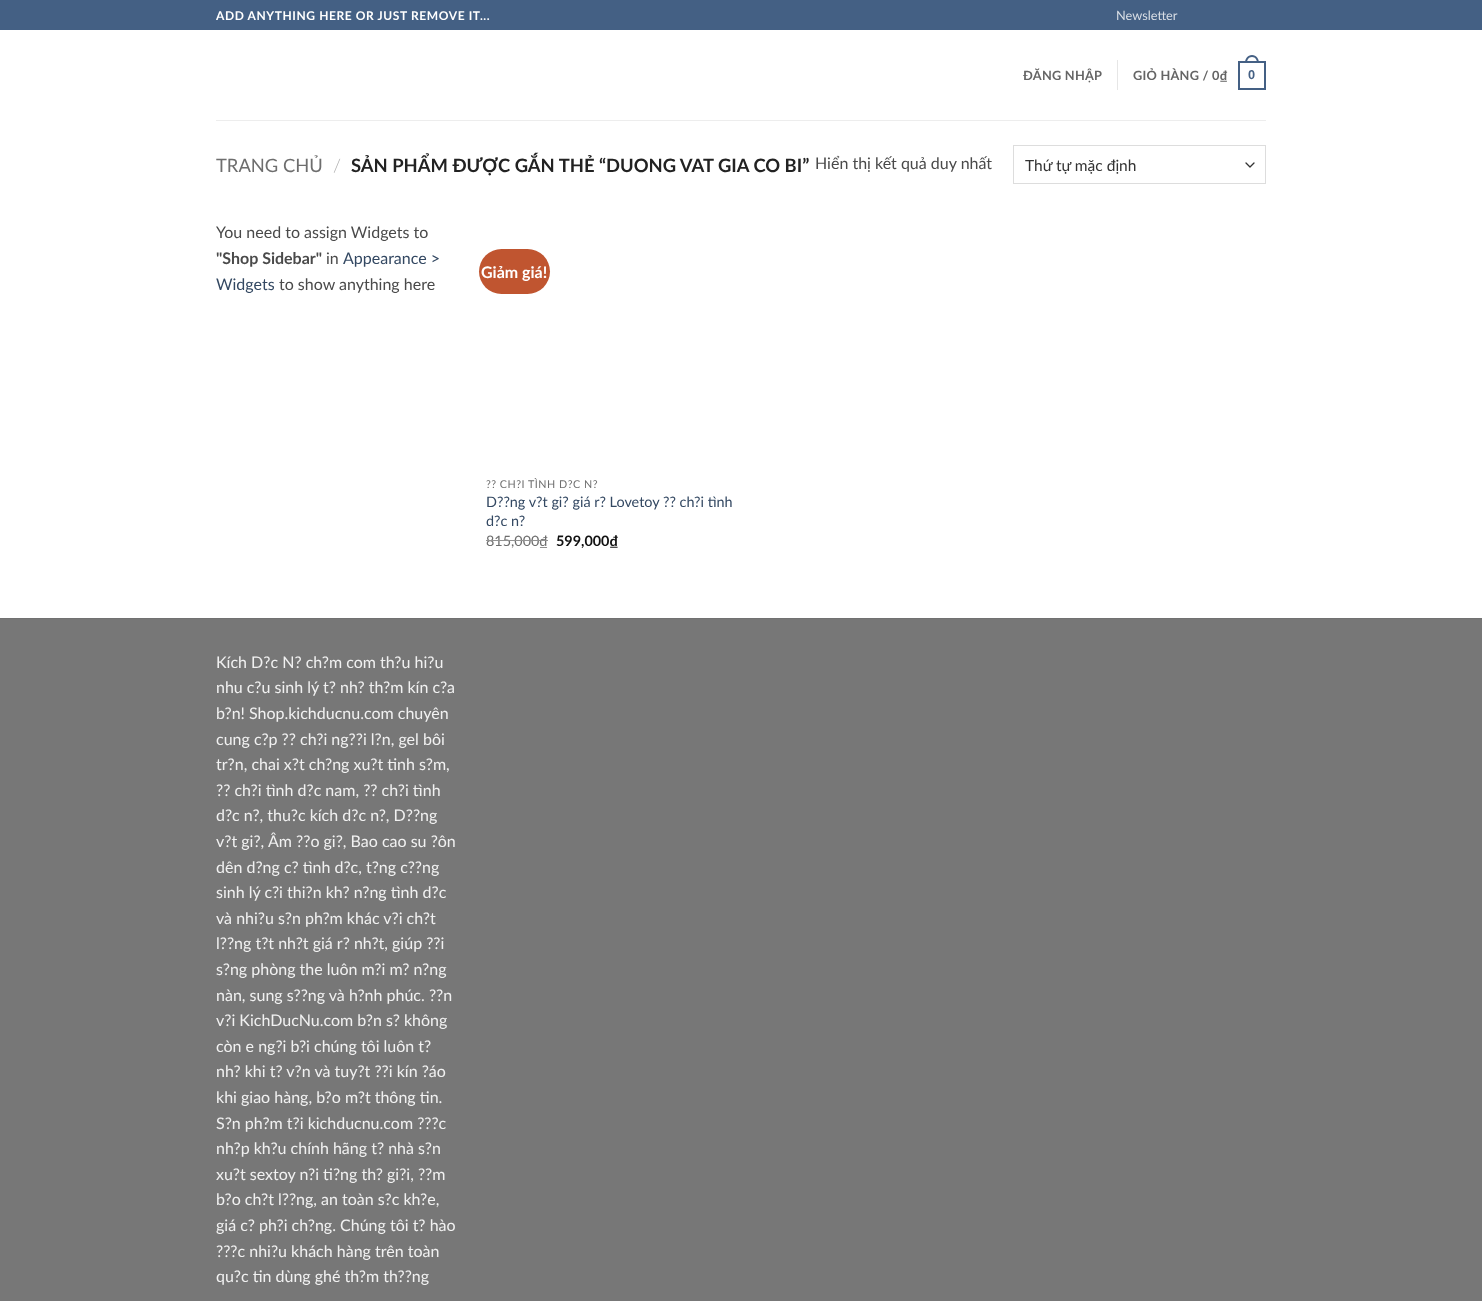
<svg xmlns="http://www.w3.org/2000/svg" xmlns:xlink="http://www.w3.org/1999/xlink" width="1482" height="1301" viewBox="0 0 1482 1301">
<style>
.cls-1{font:bold 12px Lato;letter-spacing:0.6px;fill:#ffffff}
.cls-2{font:12.75px Lato;fill:#dadfe6}
.cls-3{font:bold 12.75px Lato;letter-spacing:0.25px;fill:#656565}
.cls-4{font:bold 12.75px Liberation Sans;letter-spacing:0.25px;fill:#446084}
.cls-5{font:18.4px Lato;fill:#6e6e6e}
.cls-6{font:300 18.4px Lato;fill:#b2b2b2}
.cls-7{font:bold 18.4px Lato;fill:#222222}
.cls-8{font:16px Lato;fill:#4a4a4a}
.cls-9{font:15.5px Lato;fill:#333333}
.cls-10{font:bold 16px Lato;fill:#4a4a4a}
.cls-11{font:16px Lato;fill:#334862}
.cls-12{font:bold 16px Lato;fill:#ffffff}
.cls-13{font:10.75px Lato;letter-spacing:0.5px;fill:#6e6e6e}
.cls-14{font:14.4px Lato;fill:#334862}
.cls-15{font:14.4px Lato;fill:#6e6e6e}
.cls-16{font:bold 14.4px Lato;fill:#111111}
.cls-17{font:16px Lato;fill:#f1f1f1}
</style>
<rect width="100%" height="100%" fill="#ffffff"/>
<rect fill="#446084" x="0" y="0" width="1482" height="30"/>
<rect fill="#e6e6e6" x="1117" y="60" width="1" height="30"/>
<rect fill="none" stroke="#446084" stroke-width="2" x="1239" y="62" width="26" height="27"/>
<path fill="#446084" fill-rule="evenodd" d="M1252 55C1256.5 55 1259 59 1259 63H1245C1245 59 1247.5 55 1252 55ZM1252 57C1255.5 57 1257 60 1257 63H1247C1247 60 1248.5 57 1252 57Z"/>
<rect fill="#ededed" x="216" y="120" width="1050" height="1"/>
<path fill="none" stroke="#333333" stroke-width="1.3" stroke-linecap="round" stroke-linejoin="round" d="M1246 163L1250 167L1254 163"/>
<rect fill="none" stroke="#dddddd" x="1013.5" y="145.5" width="252" height="38"/>
<rect fill="#c05530" x="479" y="249" width="71" height="45" rx="22.5"/>
<rect fill="#777777" x="0" y="619" width="1482" height="682"/>
<rect fill="#717171" x="0" y="618" width="1482" height="1"/>
<text class="cls-1" x="216" y="20">ADD ANYTHING HERE OR JUST REMOVE IT...</text>
<text class="cls-2" x="1116" y="20">Newsletter</text>
<text class="cls-3" x="1023" y="80">ĐĂNG NHẬP</text>
<text class="cls-3" x="1133" y="80">GIỎ HÀNG / 0₫</text>
<text class="cls-4" x="1248" y="79">0</text>
<text class="cls-5" x="216" y="172">TRANG CHỦ</text>
<text class="cls-6" x="333" y="172">/</text>
<text class="cls-7" x="351" y="172">SẢN PHẨM ĐƯỢC GẮN THẺ “DUONG VAT GIA CO BI”</text>
<text class="cls-8" x="815" y="169">Hiển thị kết quả duy nhất</text>
<text class="cls-9" x="1025" y="171">Thứ tự mặc định</text>
<text class="cls-8" x="216" y="238">You need to assign Widgets to</text>
<text class="cls-10" x="216" y="264">"Shop Sidebar"</text>
<text class="cls-8" x="326" y="264">in</text>
<text class="cls-11" x="343" y="264">Appearance &gt;</text>
<text class="cls-11" x="216" y="290">Widgets</text>
<text class="cls-8" x="279" y="290">to show anything here</text>
<text class="cls-12" x="481" y="278">Giảm giá!</text>
<text class="cls-13" x="486" y="488">?? CH?I TÌNH D?C N?</text>
<text class="cls-14"><tspan x="486" y="507">D??ng v?t gi? giá r? Lovetoy ?? ch?i tình</tspan><tspan x="486" y="526">d?c n?</tspan></text>
<text class="cls-15" x="486" y="546">815,000₫</text>
<rect fill="#929292" x="486" y="540" width="62" height="1"/>
<text class="cls-16" x="556" y="546">599,000₫</text>
<text class="cls-17"><tspan x="216" y="668">Kích D?c N? ch?m com th?u hi?u</tspan><tspan x="216" y="693">nhu c?u sinh lý t? nh? th?m kín c?a</tspan><tspan x="216" y="719">b?n! Shop.kichducnu.com chuyên</tspan><tspan x="216" y="745">cung c?p ?? ch?i ng??i l?n, gel bôi</tspan><tspan x="216" y="770">tr?n, chai x?t ch?ng xu?t tinh s?m,</tspan><tspan x="216" y="796">?? ch?i tình d?c nam, ?? ch?i tình</tspan><tspan x="216" y="821">d?c n?, thu?c kích d?c n?, D??ng</tspan><tspan x="216" y="847">v?t gi?,</tspan></text>
<text class="cls-17" x="268" y="847">Âm ??o gi?, Bao cao su ?ôn</text>
<text class="cls-17"><tspan x="216" y="873">dên d?ng c? tình d?c, t?ng c??ng</tspan><tspan x="216" y="898">sinh lý c?i thi?n kh? n?ng tình d?c</tspan><tspan x="216" y="924">và nhi?u s?n ph?m khác v?i ch?t</tspan><tspan x="216" y="949">l??ng t?t nh?t giá r? nh?t, giúp ??i</tspan><tspan x="216" y="975">s?ng phòng the luôn m?i m? n?ng</tspan><tspan x="216" y="1001">nàn, sung s??ng và h?nh phúc. ??n</tspan><tspan x="216" y="1026">v?i KichDucNu.com b?n s? không</tspan><tspan x="216" y="1052">còn e ng?i b?i chúng tôi luôn t?</tspan><tspan x="216" y="1077">nh? khi t? v?n và tuy?t ??i kín ?áo</tspan><tspan x="216" y="1103">khi giao hàng, b?o m?t thông tin.</tspan><tspan x="216" y="1129">S?n ph?m t?i kichducnu.com ???c</tspan><tspan x="216" y="1154">nh?p kh?u chính hãng t? nhà s?n</tspan><tspan x="216" y="1180">xu?t sextoy n?i ti?ng th? gi?i, ??m</tspan><tspan x="216" y="1205">b?o ch?t l??ng, an toàn s?c kh?e,</tspan><tspan x="216" y="1231">giá c? ph?i ch?ng. Chúng tôi t? hào</tspan><tspan x="216" y="1257">???c nhi?u khách hàng trên toàn</tspan><tspan x="216" y="1282">qu?c tin dùng ghé th?m th??ng</tspan></text>
</svg>
